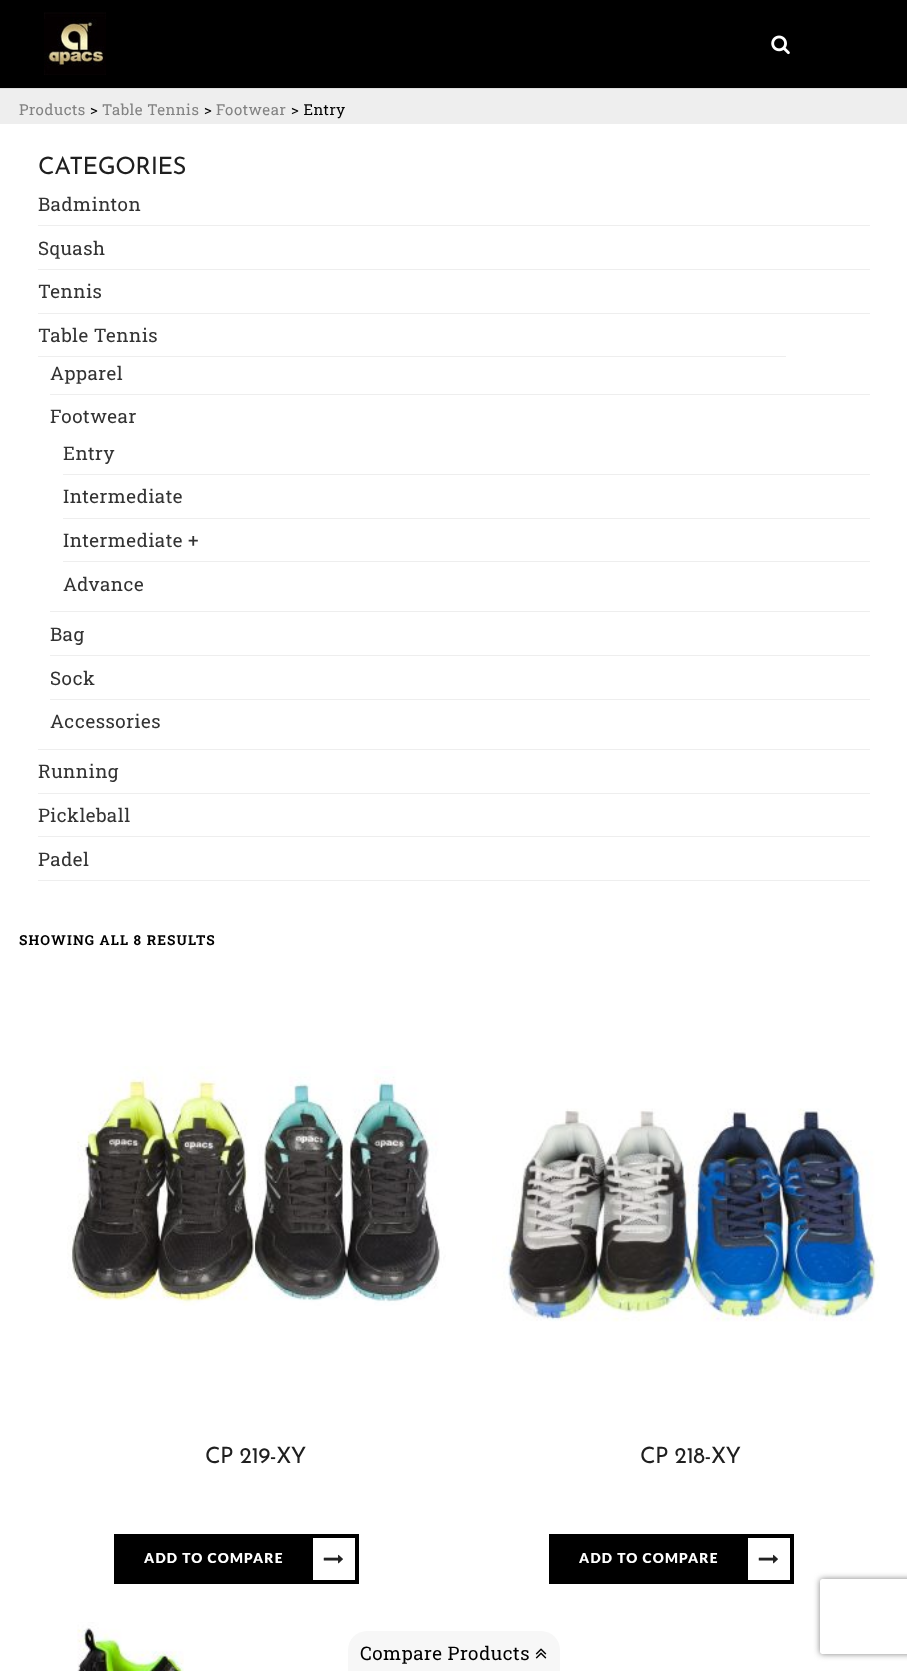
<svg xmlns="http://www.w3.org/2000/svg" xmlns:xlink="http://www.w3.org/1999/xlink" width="907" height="1671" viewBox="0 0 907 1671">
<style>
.cls-1{font:15px Roboto Slab;letter-spacing:0.5px;fill:#828282}
.cls-2{font:15px Roboto Slab;letter-spacing:0.5px;fill:#000000}
.cls-3{font:24px Josefin Sans;letter-spacing:-0.5px;fill:#1f1f1f}
.cls-4{font:18.75px Roboto Slab;letter-spacing:0.5px;fill:#333333}
.cls-5{font:bold 13.75px Roboto Slab;letter-spacing:1.1px;fill:#000000}
.cls-6{font:22.5px Josefin Sans;letter-spacing:-0.5px;fill:#1f1f1f}
.cls-7{font:900 13.75px Lato;letter-spacing:1.25px;fill:#ffffff}
.cls-8{font:18.75px Roboto Slab;letter-spacing:0.5px;fill:#000000}
</style>
<defs>
<clipPath id="clip1"><path d="M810 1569H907V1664H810ZM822.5 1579H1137.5C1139 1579 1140 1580 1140 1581.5V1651.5C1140 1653 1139 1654 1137.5 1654H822.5C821 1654 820 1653 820 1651.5V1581.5C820 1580 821 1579 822.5 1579Z" clip-rule="evenodd"/></clipPath>
</defs>
<rect width="100%" height="100%" fill="#ffffff"/>
<rect fill="#000000" x="0" y="0" width="907" height="88"/>
<rect fill="#dddddd" x="0" y="88" width="907" height="1"/>
<image xlink:href="image0.png" x="44" y="12" width="62" height="63"/>
<image xlink:href="image1.png" x="771" y="35" width="19" height="20"/>
<rect fill="#eeeeee" x="0" y="89" width="907" height="35"/>
<rect fill="#eeeeee" x="38" y="225" width="832" height="1"/>
<rect fill="#eeeeee" x="38" y="269" width="832" height="1"/>
<rect fill="#eeeeee" x="38" y="313" width="832" height="1"/>
<rect fill="#eeeeee" x="38" y="749" width="832" height="1"/>
<rect fill="#eeeeee" x="38" y="356" width="748" height="1"/>
<rect fill="#eeeeee" x="50" y="394" width="820" height="1"/>
<rect fill="#eeeeee" x="50" y="611" width="820" height="1"/>
<rect fill="#eeeeee" x="63" y="474" width="807" height="1"/>
<rect fill="#eeeeee" x="63" y="518" width="807" height="1"/>
<rect fill="#eeeeee" x="63" y="561" width="807" height="1"/>
<rect fill="#eeeeee" x="50" y="655" width="820" height="1"/>
<rect fill="#eeeeee" x="50" y="699" width="820" height="1"/>
<rect fill="#eeeeee" x="38" y="793" width="832" height="1"/>
<rect fill="#eeeeee" x="38" y="836" width="832" height="1"/>
<rect fill="#eeeeee" x="38" y="880" width="832" height="1"/>
<image xlink:href="image2.png" x="67" y="1066" width="379" height="240"/>
<rect fill="#000000" x="114" y="1534" width="245" height="50"/>
<rect fill="#ffffff" x="313" y="1538" width="42" height="42"/>
<image xlink:href="image3.png" x="323" y="1554" width="20" height="10"/>
<image xlink:href="image4.png" x="492" y="1108" width="388" height="214"/>
<rect fill="#000000" x="549" y="1534" width="245" height="50"/>
<rect fill="#ffffff" x="748" y="1538" width="42" height="42"/>
<image xlink:href="image3.png" x="758" y="1554" width="20" height="10"/>
<image xlink:href="image5.png" x="77" y="1622" width="107" height="49"/>
<path fill="#f7f7f7" d="M367 1631H541C551.5 1631 560 1639.5 560 1650V1671H348V1650C348 1639.5 356.5 1631 367 1631Z"/>
<image xlink:href="image6.png" x="535" y="1648" width="12" height="11"/>
<g clip-path="url(#clip1)">
<rect fill="#808080" filter="blur(3px)" x="820" y="1579" width="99" height="75" rx="2.5"/>
</g>
<text class="cls-1" x="19" y="115">Products</text>
<text class="cls-2" x="90" y="115">&gt;</text>
<text class="cls-1" x="102" y="115">Table Tennis</text>
<text class="cls-2" x="204" y="115">&gt;</text>
<text class="cls-1" x="216" y="115">Footwear</text>
<text class="cls-2" x="291" y="115">&gt; Entry</text>
<text class="cls-3" x="38" y="174">CATEGORIES</text>
<text class="cls-4" x="38" y="211">Badminton</text>
<text class="cls-4" x="38" y="255">Squash</text>
<text class="cls-4" x="38" y="298">Tennis</text>
<text class="cls-4" x="38" y="342">Table Tennis</text>
<text class="cls-4" x="50" y="380">Apparel</text>
<text class="cls-4" x="50" y="423">Footwear</text>
<text class="cls-4" x="63" y="460">Entry</text>
<text class="cls-4" x="63" y="503">Intermediate</text>
<text class="cls-4" x="63" y="547">Intermediate +</text>
<text class="cls-4" x="63" y="591">Advance</text>
<text class="cls-4" x="50" y="641">Bag</text>
<text class="cls-4" x="50" y="685">Sock</text>
<text class="cls-4" x="50" y="728">Accessories</text>
<text class="cls-4" x="38" y="778">Running</text>
<text class="cls-4" x="38" y="822">Pickleball</text>
<text class="cls-4" x="38" y="866">Padel</text>
<text class="cls-5" x="19" y="945">SHOWING ALL 8 RESULTS</text>
<text class="cls-6" x="205" y="1463">CP 219-XY</text>
<text class="cls-7" x="144" y="1563">ADD TO COMPARE</text>
<text class="cls-6" x="640" y="1463">CP 218-XY</text>
<text class="cls-7" x="579" y="1563">ADD TO COMPARE</text>
<text class="cls-8" x="360" y="1660">Compare Products</text>
</svg>
